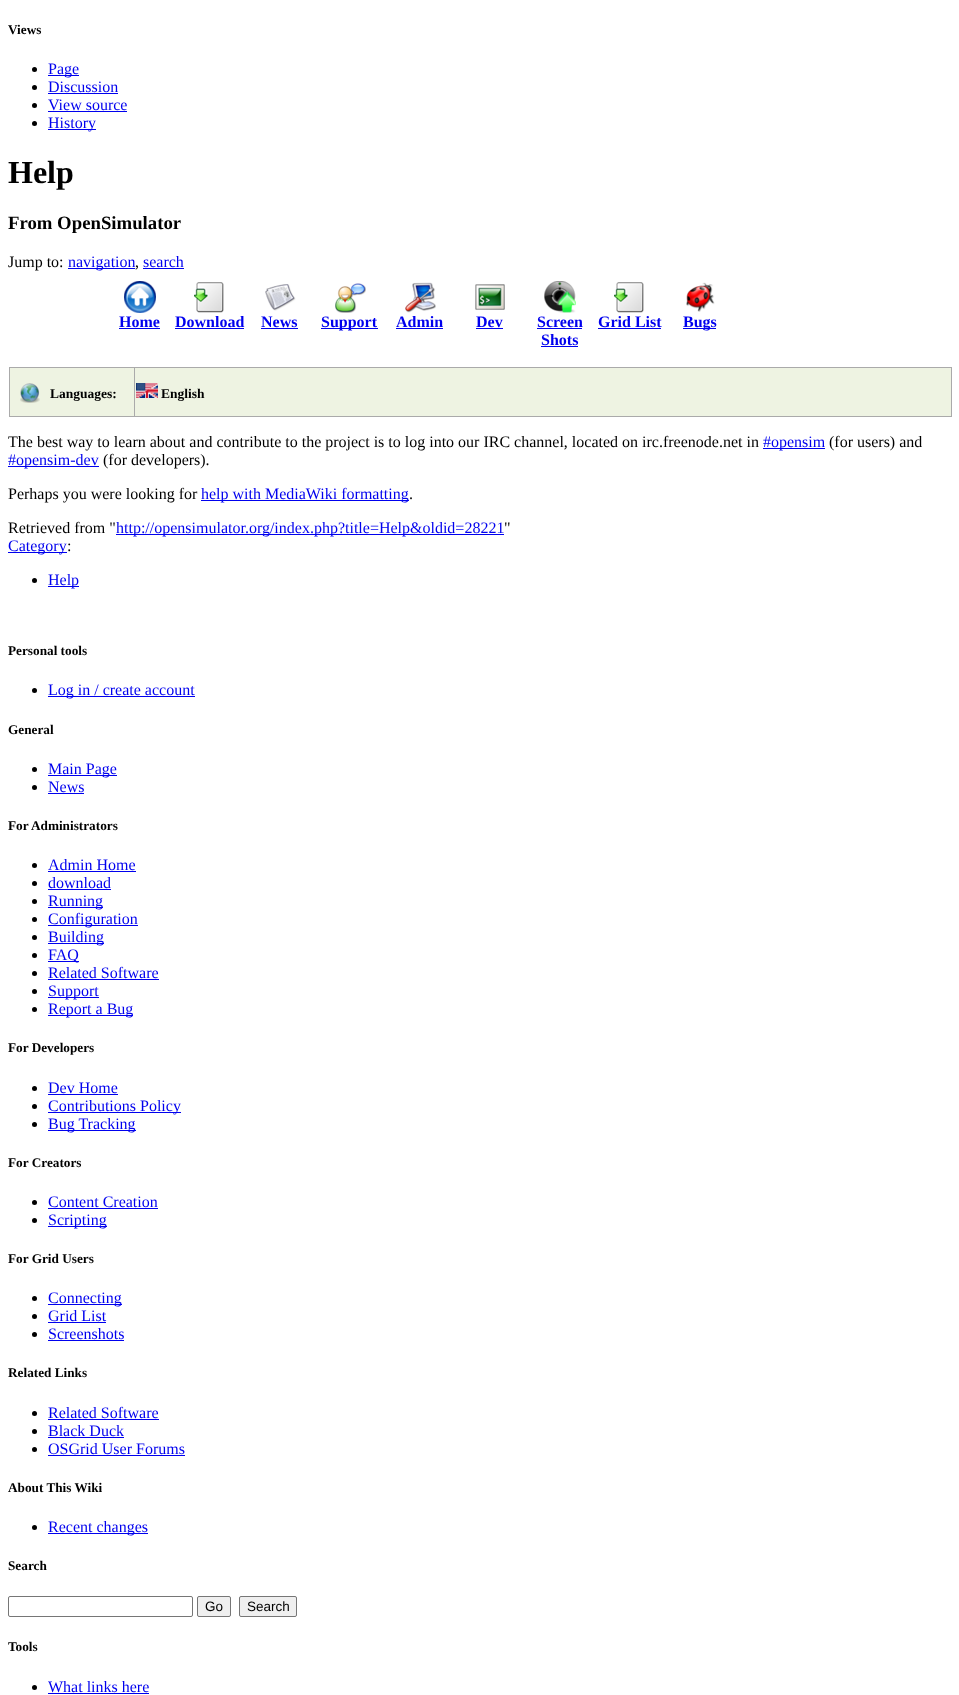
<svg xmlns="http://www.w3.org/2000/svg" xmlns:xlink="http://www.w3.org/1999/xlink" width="959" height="1695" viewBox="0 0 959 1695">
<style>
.cls-1{font:bold 13.25px Liberation Serif;fill:#000000}
.cls-2{font:16px Liberation Serif;fill:#0000ee}
.cls-3{font:bold 32px Liberation Serif;fill:#000000}
.cls-4{font:bold 18.75px Liberation Serif;fill:#000000}
.cls-5{font:16px Liberation Serif;fill:#000000}
.cls-6{font:bold 16px Liberation Serif;fill:#0000ee}
.cls-7{font:bold 13.5px Liberation Serif;fill:#000000}
.cls-8{font:13.5px Liberation Sans;fill:#000000}
</style>
<rect width="100%" height="100%" fill="#ffffff"/>
<circle fill="#000000" cx="34.5" cy="69.5" r="2.5"/>
<rect fill="#0000ee" x="48" y="75" width="31" height="1"/>
<circle fill="#000000" cx="34.5" cy="87.5" r="2.5"/>
<rect fill="#0000ee" x="48" y="93" width="70" height="1"/>
<circle fill="#000000" cx="34.5" cy="105.5" r="2.5"/>
<rect fill="#0000ee" x="48" y="111" width="79" height="1"/>
<circle fill="#000000" cx="34.5" cy="123.5" r="2.5"/>
<rect fill="#0000ee" x="48" y="129" width="48" height="1"/>
<rect fill="#0000ee" x="68" y="268" width="67" height="1"/>
<rect fill="#0000ee" x="143" y="268" width="41" height="1"/>
<image xlink:href="image0.png" x="124" y="281" width="32" height="32"/>
<rect fill="#0000ee" x="119" y="328" width="41" height="1"/>
<image xlink:href="image1.png" x="194" y="282" width="30" height="31"/>
<rect fill="#0000ee" x="175" y="328" width="69" height="1"/>
<image xlink:href="image2.png" x="265" y="284" width="31" height="27"/>
<rect fill="#0000ee" x="261" y="328" width="37" height="1"/>
<image xlink:href="image3.png" x="335" y="283" width="31" height="30"/>
<rect fill="#0000ee" x="321" y="328" width="57" height="1"/>
<image xlink:href="image4.png" x="405" y="282" width="31" height="31"/>
<rect fill="#0000ee" x="396" y="328" width="47" height="1"/>
<image xlink:href="image5.png" x="475" y="284" width="30" height="26"/>
<rect fill="#0000ee" x="476" y="328" width="27" height="1"/>
<image xlink:href="image6.png" x="544" y="281" width="32" height="32"/>
<rect fill="#0000ee" x="537" y="328" width="45" height="1"/>
<rect fill="#0000ee" x="541" y="346" width="37" height="1"/>
<image xlink:href="image1.png" x="614" y="282" width="30" height="31"/>
<rect fill="#0000ee" x="598" y="328" width="63" height="1"/>
<image xlink:href="image7.png" x="686" y="282" width="29" height="30"/>
<rect fill="#0000ee" x="683" y="328" width="33" height="1"/>
<rect fill="#aaaaaa" x="9" y="367" width="943" height="1"/>
<rect fill="#aaaaaa" x="951" y="367" width="1" height="50"/>
<rect fill="#aaaaaa" x="9" y="416" width="943" height="1"/>
<rect fill="#aaaaaa" x="9" y="367" width="1" height="50"/>
<rect fill="#eef3e2" x="10" y="368" width="941" height="48"/>
<image xlink:href="image8.png" x="20" y="383" width="20" height="20"/>
<rect fill="#aaaaaa" x="134" y="367" width="1" height="50"/>
<image xlink:href="image9.png" x="136" y="383" width="22" height="15"/>
<rect fill="#0000ee" x="763" y="448" width="62" height="1"/>
<rect fill="#0000ee" x="8" y="466" width="91" height="1"/>
<rect fill="#0000ee" x="201" y="500" width="208" height="1"/>
<rect fill="#0000ee" x="116" y="534" width="388" height="1"/>
<rect fill="#0000ee" x="8" y="552" width="59" height="1"/>
<circle fill="#000000" cx="34.5" cy="580.5" r="2.5"/>
<rect fill="#0000ee" x="48" y="586" width="31" height="1"/>
<circle fill="#000000" cx="34.5" cy="690.5" r="2.5"/>
<rect fill="#0000ee" x="48" y="696" width="147" height="1"/>
<circle fill="#000000" cx="34.5" cy="769.5" r="2.5"/>
<rect fill="#0000ee" x="48" y="775" width="69" height="1"/>
<circle fill="#000000" cx="34.5" cy="787.5" r="2.5"/>
<rect fill="#0000ee" x="48" y="793" width="36" height="1"/>
<circle fill="#000000" cx="34.5" cy="865.5" r="2.5"/>
<rect fill="#0000ee" x="48" y="871" width="88" height="1"/>
<circle fill="#000000" cx="34.5" cy="883.5" r="2.5"/>
<rect fill="#0000ee" x="48" y="889" width="63" height="1"/>
<circle fill="#000000" cx="34.5" cy="901.5" r="2.5"/>
<rect fill="#0000ee" x="48" y="907" width="55" height="1"/>
<circle fill="#000000" cx="34.5" cy="919.5" r="2.5"/>
<rect fill="#0000ee" x="48" y="925" width="90" height="1"/>
<circle fill="#000000" cx="34.5" cy="937.5" r="2.5"/>
<rect fill="#0000ee" x="48" y="943" width="56" height="1"/>
<circle fill="#000000" cx="34.5" cy="955.5" r="2.5"/>
<rect fill="#0000ee" x="48" y="961" width="31" height="1"/>
<circle fill="#000000" cx="34.5" cy="973.5" r="2.5"/>
<rect fill="#0000ee" x="48" y="979" width="111" height="1"/>
<circle fill="#000000" cx="34.5" cy="991.5" r="2.5"/>
<rect fill="#0000ee" x="48" y="997" width="51" height="1"/>
<circle fill="#000000" cx="34.5" cy="1009.5" r="2.5"/>
<rect fill="#0000ee" x="48" y="1015" width="85" height="1"/>
<circle fill="#000000" cx="34.5" cy="1088.5" r="2.5"/>
<rect fill="#0000ee" x="48" y="1094" width="70" height="1"/>
<circle fill="#000000" cx="34.5" cy="1106.5" r="2.5"/>
<rect fill="#0000ee" x="48" y="1112" width="133" height="1"/>
<circle fill="#000000" cx="34.5" cy="1124.5" r="2.5"/>
<rect fill="#0000ee" x="48" y="1130" width="88" height="1"/>
<circle fill="#000000" cx="34.5" cy="1202.5" r="2.5"/>
<rect fill="#0000ee" x="48" y="1208" width="110" height="1"/>
<circle fill="#000000" cx="34.5" cy="1220.5" r="2.5"/>
<rect fill="#0000ee" x="48" y="1226" width="59" height="1"/>
<circle fill="#000000" cx="34.5" cy="1298.5" r="2.5"/>
<rect fill="#0000ee" x="48" y="1304" width="74" height="1"/>
<circle fill="#000000" cx="34.5" cy="1316.5" r="2.5"/>
<rect fill="#0000ee" x="48" y="1322" width="58" height="1"/>
<circle fill="#000000" cx="34.5" cy="1334.5" r="2.5"/>
<rect fill="#0000ee" x="48" y="1340" width="76" height="1"/>
<circle fill="#000000" cx="34.5" cy="1413.5" r="2.5"/>
<rect fill="#0000ee" x="48" y="1419" width="111" height="1"/>
<circle fill="#000000" cx="34.5" cy="1431.5" r="2.5"/>
<rect fill="#0000ee" x="48" y="1437" width="76" height="1"/>
<circle fill="#000000" cx="34.5" cy="1449.5" r="2.5"/>
<rect fill="#0000ee" x="48" y="1455" width="137" height="1"/>
<circle fill="#000000" cx="34.5" cy="1527.5" r="2.5"/>
<rect fill="#0000ee" x="48" y="1533" width="100" height="1"/>
<rect fill="none" stroke="#767676" x="8.5" y="1596.5" width="184" height="20" rx="1.5"/>
<rect fill="#efefef" stroke="#767676" x="197.5" y="1596.5" width="33" height="20" rx="1.5"/>
<rect fill="#efefef" stroke="#767676" x="239.5" y="1596.5" width="57" height="20" rx="1.5"/>
<circle fill="#000000" cx="34.5" cy="1687.5" r="2.5"/>
<rect fill="#0000ee" x="48" y="1693" width="101" height="1"/>
<text class="cls-1" x="8" y="34">Views</text>
<text class="cls-2"><tspan x="48" y="74">Page</tspan><tspan x="48" y="92">Discussion</tspan><tspan x="48" y="110">View source</tspan><tspan x="48" y="128">History</tspan></text>
<text class="cls-3" x="8" y="183">Help</text>
<text class="cls-4" x="8" y="229">From OpenSimulator</text>
<text class="cls-5" x="8" y="267">Jump to:</text>
<text class="cls-2" x="68" y="267">navigation</text>
<text class="cls-5" x="135" y="267">,</text>
<text class="cls-2" x="143" y="267">search</text>
<text class="cls-6" x="119" y="327">Home</text>
<text class="cls-6" x="175" y="327">Download</text>
<text class="cls-6" x="261" y="327">News</text>
<text class="cls-6" x="321" y="327">Support</text>
<text class="cls-6" x="396" y="327">Admin</text>
<text class="cls-6" x="476" y="327">Dev</text>
<text class="cls-6" x="537" y="327">Screen</text>
<text class="cls-6" x="541" y="345">Shots</text>
<text class="cls-6" x="598" y="327">Grid List</text>
<text class="cls-6" x="683" y="327">Bugs</text>
<text class="cls-7" x="50" y="398">Languages:</text>
<text class="cls-7" x="161" y="398">English</text>
<text class="cls-5" x="8" y="447">The best way to learn about and contribute to the project is to log into our IRC channel, located on irc.freenode.net in</text>
<text class="cls-2" x="763" y="447">#opensim</text>
<text class="cls-5" x="829" y="447">(for users) and</text>
<text class="cls-2" x="8" y="465">#opensim-dev</text>
<text class="cls-5" x="103" y="465">(for developers).</text>
<text class="cls-5" x="8" y="499">Perhaps you were looking for</text>
<text class="cls-2" x="201" y="499">help with MediaWiki formatting</text>
<text class="cls-5" x="409" y="499">.</text>
<text class="cls-5" x="8" y="533">Retrieved from "</text>
<text class="cls-2" x="116" y="533">http://opensimulator.org/index.php?title=Help&amp;oldid=28221</text>
<text class="cls-5" x="504" y="533">"</text>
<text class="cls-2" x="8" y="551">Category</text>
<text class="cls-5" x="67" y="551">:</text>
<text class="cls-2" x="48" y="585">Help</text>
<text class="cls-1" x="8" y="655">Personal tools</text>
<text class="cls-2" x="48" y="695">Log in / create account</text>
<text class="cls-1" x="8" y="734">General</text>
<text class="cls-2"><tspan x="48" y="774">Main Page</tspan><tspan x="48" y="792">News</tspan></text>
<text class="cls-1" x="8" y="830">For Administrators</text>
<text class="cls-2"><tspan x="48" y="870">Admin Home</tspan><tspan x="48" y="888">download</tspan><tspan x="48" y="906">Running</tspan><tspan x="48" y="924">Configuration</tspan><tspan x="48" y="942">Building</tspan><tspan x="48" y="960">FAQ</tspan><tspan x="48" y="978">Related Software</tspan><tspan x="48" y="996">Support</tspan><tspan x="48" y="1014">Report a Bug</tspan></text>
<text class="cls-1" x="8" y="1052">For Developers</text>
<text class="cls-2"><tspan x="48" y="1093">Dev Home</tspan><tspan x="48" y="1111">Contributions Policy</tspan><tspan x="48" y="1129">Bug Tracking</tspan></text>
<text class="cls-1" x="8" y="1167">For Creators</text>
<text class="cls-2"><tspan x="48" y="1207">Content Creation</tspan><tspan x="48" y="1225">Scripting</tspan></text>
<text class="cls-1" x="8" y="1263">For Grid Users</text>
<text class="cls-2"><tspan x="48" y="1303">Connecting</tspan><tspan x="48" y="1321">Grid List</tspan><tspan x="48" y="1339">Screenshots</tspan></text>
<text class="cls-1" x="8" y="1377">Related Links</text>
<text class="cls-2"><tspan x="48" y="1418">Related Software</tspan><tspan x="48" y="1436">Black Duck</tspan><tspan x="48" y="1454">OSGrid User Forums</tspan></text>
<text class="cls-1" x="8" y="1492">About This Wiki</text>
<text class="cls-2" x="48" y="1532">Recent changes</text>
<text class="cls-1" x="8" y="1570">Search</text>
<text class="cls-8" x="205" y="1611">Go</text>
<text class="cls-8" x="247" y="1611">Search</text>
<text class="cls-1" x="8" y="1651">Tools</text>
<text class="cls-2" x="48" y="1692">What links here</text>
</svg>
